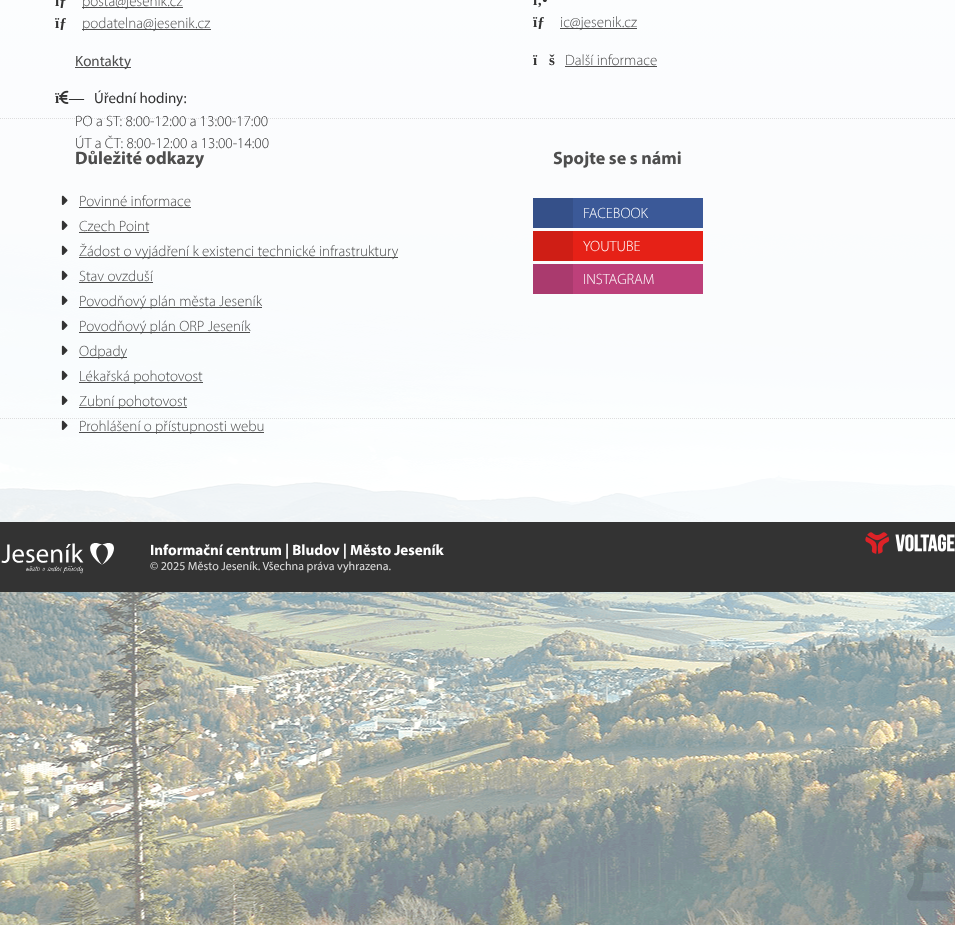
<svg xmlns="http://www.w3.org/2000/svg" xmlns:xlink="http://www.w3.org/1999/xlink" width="955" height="925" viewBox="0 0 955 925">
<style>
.cls-1{font:bold 15px Liberation Serif;fill:#333333}
.cls-2{font:300 15px Myriad;fill:#4e4e4e}
.cls-3{font:15px Myriad;fill:#4e4e4e}
.cls-4{font:15px Myriad;fill:#333333}
.cls-5{font:300 15px Myriad;fill:#333333}
.cls-6{font:bold 18px Myriad;fill:#4e4e4e}
.cls-7{font:300 15px Myriad;fill:#ffffff}
.cls-8{font:bold 15px Myriad;fill:#ffffff}
.cls-9{font:12px Myriad;fill:#dddddd}
</style>
<defs>
<linearGradient id="g1" gradientUnits="userSpaceOnUse" x1="477" y1="-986" x2="478" y2="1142"><stop offset="0" stop-color="#ffffff"/><stop offset="1" stop-color="#c9d9e7"/></linearGradient>
</defs>
<rect width="100%" height="100%" fill="#ffffff"/>
<rect fill="url(#g1)" x="0" y="0" width="955" height="814"/>
<image xlink:href="image0.png" x="0" y="234" width="955" height="691"/>
<rect fill="#ffffff" fill-opacity="0.85" x="0" y="0" width="955" height="522"/>
<path fill="none" stroke="#dddddd" stroke-dasharray="1 1" d="M0 118.5H478"/>
<rect fill="#4e4e4e" x="82" y="7" width="101" height="1"/>
<rect fill="#4e4e4e" x="82" y="29" width="129" height="1"/>
<rect fill="#4e4e4e" x="75" y="67" width="56" height="1"/>
<image xlink:href="image1.png" x="59" y="90" width="10" height="14"/>
<path fill="none" stroke="#dddddd" stroke-dasharray="1 1" d="M478 118.5H955"/>
<rect fill="#4e4e4e" x="560" y="28" width="77" height="1"/>
<rect fill="#4e4e4e" x="565" y="66" width="92" height="1"/>
<path fill="none" stroke="#dddddd" stroke-dasharray="1 1" d="M0 418.5H478"/>
<image xlink:href="image2.png" x="61" y="195" width="7" height="10"/>
<rect fill="#4e4e4e" x="79" y="207" width="112" height="1"/>
<image xlink:href="image3.png" x="61" y="220" width="7" height="10"/>
<rect fill="#4e4e4e" x="79" y="232" width="70" height="1"/>
<image xlink:href="image4.png" x="61" y="245" width="7" height="10"/>
<rect fill="#4e4e4e" x="79" y="257" width="319" height="1"/>
<image xlink:href="image5.png" x="61" y="270" width="7" height="10"/>
<rect fill="#4e4e4e" x="79" y="282" width="74" height="1"/>
<image xlink:href="image6.png" x="61" y="295" width="7" height="10"/>
<rect fill="#4e4e4e" x="79" y="307" width="183" height="1"/>
<image xlink:href="image7.png" x="61" y="320" width="7" height="10"/>
<rect fill="#4e4e4e" x="79" y="332" width="171" height="1"/>
<image xlink:href="image8.png" x="61" y="345" width="7" height="10"/>
<rect fill="#4e4e4e" x="79" y="357" width="48" height="1"/>
<image xlink:href="image9.png" x="61" y="370" width="7" height="10"/>
<rect fill="#4e4e4e" x="79" y="382" width="124" height="1"/>
<image xlink:href="image10.png" x="61" y="395" width="7" height="10"/>
<rect fill="#4e4e4e" x="79" y="407" width="108" height="1"/>
<image xlink:href="image11.png" x="61" y="420" width="7" height="10"/>
<rect fill="#4e4e4e" x="79" y="432" width="185" height="1"/>
<path fill="none" stroke="#dddddd" stroke-dasharray="1 1" d="M478 418.5H955"/>
<rect fill="#3b5998" x="573" y="198" width="130" height="30"/>
<rect fill="#355089" x="533" y="198" width="40" height="30"/>
<rect fill="#e62117" x="573" y="231" width="130" height="30"/>
<rect fill="#cf1e15" x="533" y="231" width="40" height="30"/>
<rect fill="#bd407a" x="573" y="264" width="130" height="30"/>
<rect fill="#aa3a6e" x="533" y="264" width="40" height="30"/>
<rect fill="#333333" x="0" y="522" width="955" height="70"/>
<image xlink:href="image12.png" x="1" y="543" width="113" height="31"/>
<image xlink:href="image13.png" x="865" y="532" width="90" height="22"/>
<image xlink:href="image14.png" x="907" y="835" width="47" height="66"/>
<text class="cls-1" x="55" y="6">ïƒ</text>
<text class="cls-2" x="82" y="6">posta@jesenik.cz</text>
<text class="cls-1" x="55" y="28">ïƒ</text>
<text class="cls-2" x="82" y="28">podatelna@jesenik.cz</text>
<text class="cls-3" x="75" y="66">Kontakty</text>
<text class="cls-1" x="55" y="103">ï</text>
<text class="cls-1" x="69" y="103">—</text>
<text class="cls-4" x="94" y="103">Úřední hodiny:</text>
<text class="cls-5"><tspan x="75" y="126">PO a ST: 8:00-12:00 a 13:00-17:00</tspan><tspan x="75" y="148">ÚT a ČT: 8:00-12:00 a 13:00-14:00</tspan></text>
<text class="cls-1"><tspan x="533" y="5">ï‚•</tspan><tspan x="533" y="27">ïƒ</tspan></text>
<text class="cls-2" x="560" y="27">ic@jesenik.cz</text>
<text class="cls-1" x="533" y="65">ï</text>
<text class="cls-1" x="549" y="65">š</text>
<text class="cls-2" x="565" y="65">Další informace</text>
<text class="cls-6" x="75" y="164">Důležité odkazy</text>
<text class="cls-2"><tspan x="79" y="206">Povinné informace</tspan><tspan x="79" y="231">Czech Point</tspan><tspan x="79" y="256">Žádost o vyjádření k existenci technické infrastruktury</tspan><tspan x="79" y="281">Stav ovzduší</tspan><tspan x="79" y="306">Povodňový plán města Jeseník</tspan><tspan x="79" y="331">Povodňový plán ORP Jeseník</tspan><tspan x="79" y="356">Odpady</tspan><tspan x="79" y="381">Lékařská pohotovost</tspan><tspan x="79" y="406">Zubní pohotovost</tspan><tspan x="79" y="431">Prohlášení o přístupnosti webu</tspan></text>
<text class="cls-6" x="553" y="164">Spojte se s námi</text>
<text class="cls-7" x="583" y="218">FACEBOOK</text>
<text class="cls-7" x="583" y="251">YOUTUBE</text>
<text class="cls-7" x="583" y="284">INSTAGRAM</text>
<text class="cls-8" x="150" y="555">Informační centrum | Bludov | Město Jeseník</text>
<text class="cls-9" x="150" y="570">© 2025 Město Jeseník. Všechna práva vyhrazena.</text>
</svg>
